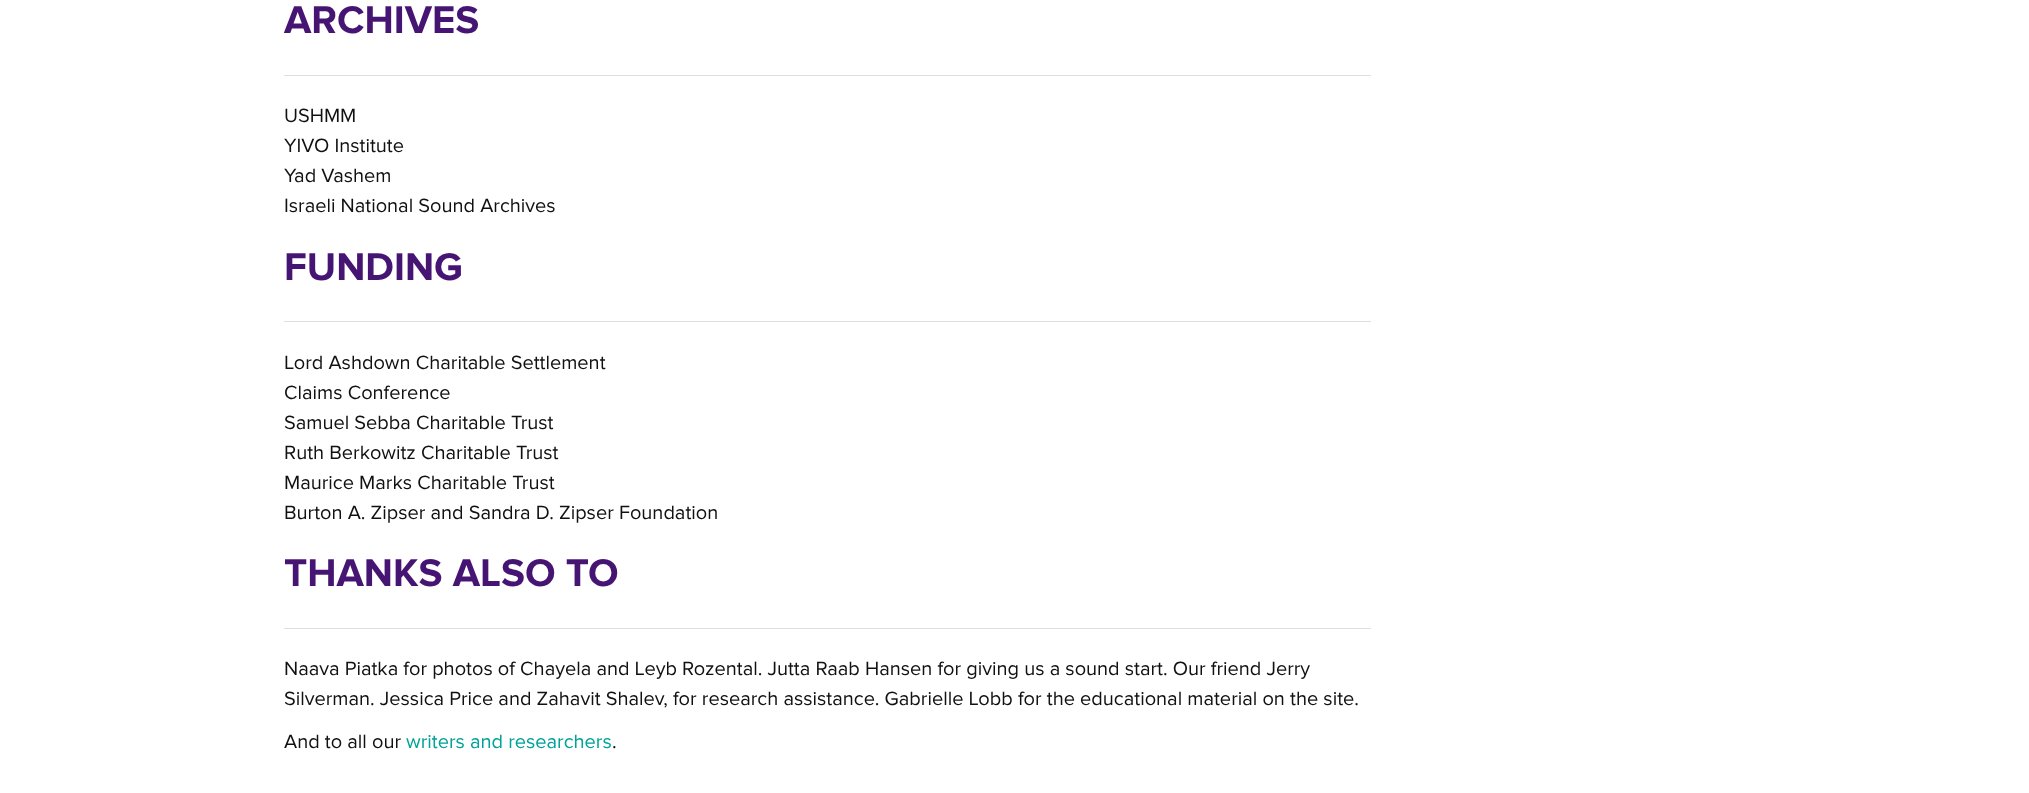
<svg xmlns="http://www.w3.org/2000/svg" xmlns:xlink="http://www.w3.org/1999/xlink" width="2029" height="793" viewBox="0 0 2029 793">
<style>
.cls-1{font:bold 40px Proxima Nova;fill:#461473}
.cls-2{font:20px Proxima Nova;fill:#111111}
.cls-3{font:20px Proxima Nova;fill:#00a399}
</style>
<rect width="100%" height="100%" fill="#ffffff"/>
<rect fill="#dedede" x="284" y="75" width="1087" height="1"/>
<rect fill="#dedede" x="284" y="321" width="1087" height="1"/>
<rect fill="#dedede" x="284" y="628" width="1087" height="1"/>
<text class="cls-1" x="284" y="33">ARCHIVES</text>
<text class="cls-2"><tspan x="284" y="122">USHMM</tspan><tspan x="284" y="152">YIVO Institute</tspan><tspan x="284" y="182">Yad Vashem</tspan><tspan x="284" y="212">Israeli National Sound Archives</tspan></text>
<text class="cls-1" x="284" y="280">FUNDING</text>
<text class="cls-2"><tspan x="284" y="369">Lord Ashdown Charitable Settlement</tspan><tspan x="284" y="399">Claims Conference</tspan><tspan x="284" y="429">Samuel Sebba Charitable Trust</tspan><tspan x="284" y="459">Ruth Berkowitz Charitable Trust</tspan><tspan x="284" y="489">Maurice Marks Charitable Trust</tspan><tspan x="284" y="519">Burton A. Zipser and Sandra D. Zipser Foundation</tspan></text>
<text class="cls-1" x="284" y="586">THANKS ALSO TO</text>
<text class="cls-2"><tspan x="284" y="675">Naava Piatka for photos of Chayela and Leyb Rozental. Jutta Raab Hansen for giving us a sound start. Our friend Jerry</tspan><tspan x="284" y="705">Silverman. Jessica Price and Zahavit Shalev, for research assistance. Gabrielle Lobb for the educational material on the site.</tspan></text>
<text class="cls-2" x="284" y="748">And to all our</text>
<text class="cls-3" x="406" y="748">writers and researchers</text>
<text class="cls-2" x="612" y="748">.</text>
</svg>
